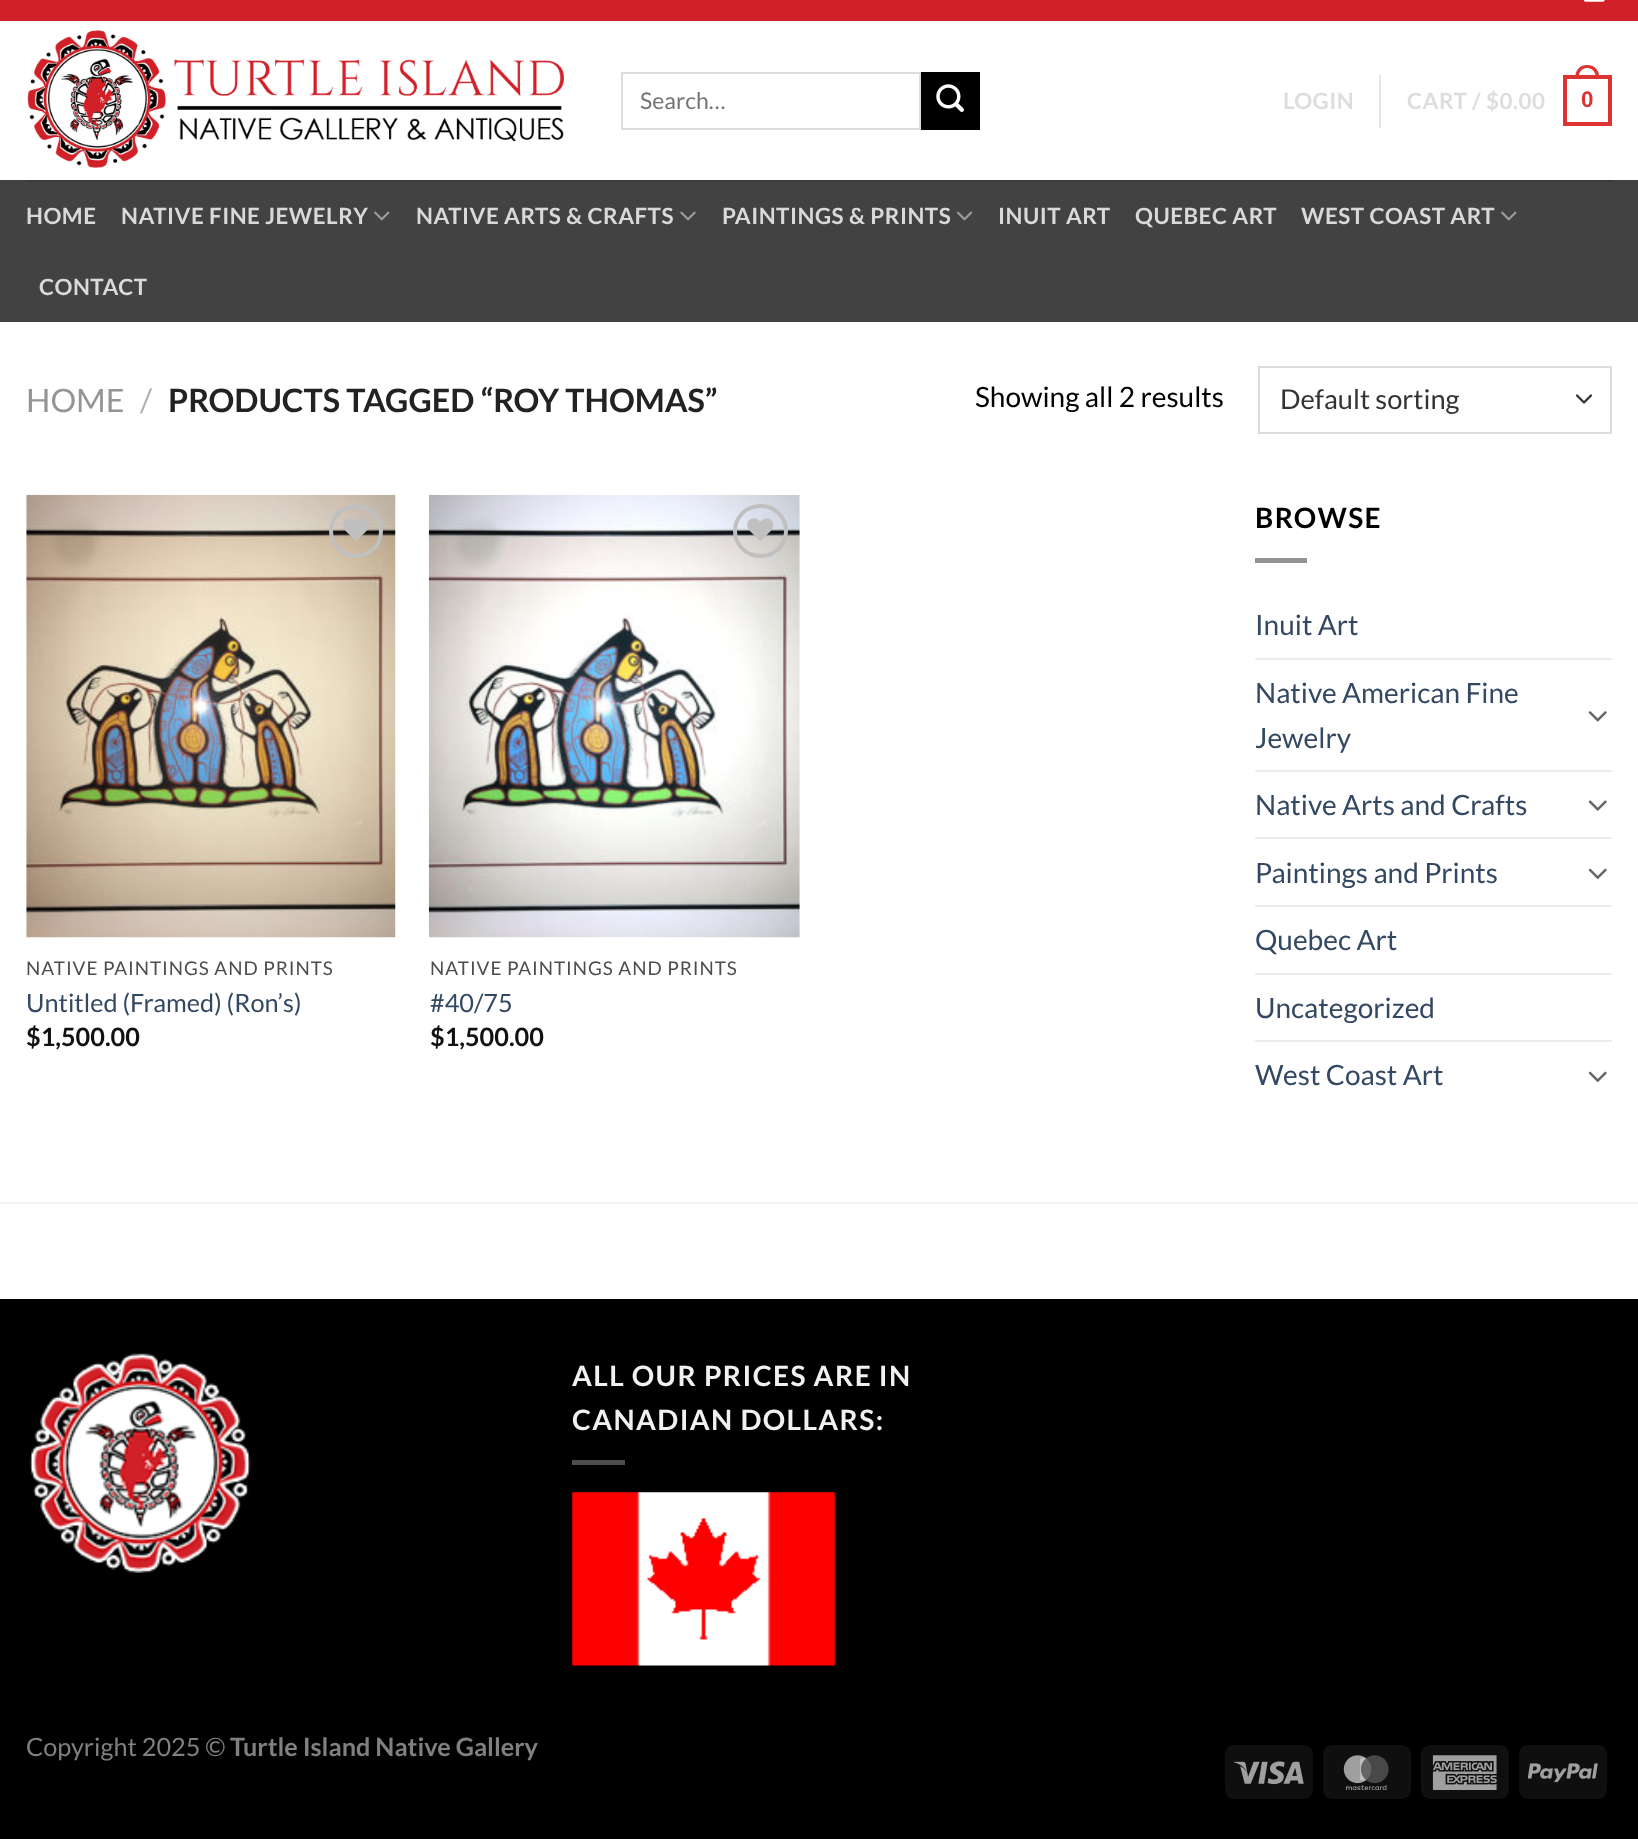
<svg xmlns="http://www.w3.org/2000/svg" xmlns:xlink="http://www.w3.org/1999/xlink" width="1638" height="1839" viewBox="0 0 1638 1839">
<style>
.cls-1{font:23px Lato;fill:#757575}
.cls-2{font:bold 22.4px Lato;letter-spacing:0.5px;fill:#dfdcdc}
.cls-3{font:bold 22.4px Liberation Sans;letter-spacing:0.5px;fill:#dd3333}
.cls-4{font:bold 22.4px Lato;letter-spacing:0.5px;fill:#d9d9d9}
.cls-5{font:32.25px Lato;fill:#949494}
.cls-6{font:32.25px Lato;fill:#b2b2b2}
.cls-7{font:bold 32.25px Lato;fill:#222222}
.cls-8{font:28px Lato;fill:#000000}
.cls-9{font:27.25px Lato;fill:#333333}
.cls-10{font:18.9px Lato;letter-spacing:0.95px;fill:#4d4d4d}
.cls-11{font:25.25px Lato;fill:#334862}
.cls-12{font:bold 25.25px Lato;fill:#111111}
.cls-13{font:bold 28px Lato;letter-spacing:1.4px;fill:#000000}
.cls-14{font:28px Lato;fill:#334862}
.cls-15{font:bold 28px Lato;letter-spacing:1.4px;fill:#f1f1f1}
.cls-16{font:25.25px Lato;fill:#808080}
.cls-17{font:bold 25.25px Lato;fill:#808080}
</style>
<rect width="100%" height="100%" fill="#ffffff"/>
<rect fill="#d12128" x="0" y="0" width="1638" height="21"/>
<image xlink:href="image0.png" x="1583" y="0" width="22" height="2"/>
<image xlink:href="image1.png" x="27" y="30" width="537" height="139"/>
<rect fill="none" stroke="#dddddd" stroke-width="2" x="622" y="73" width="298" height="56"/>
<rect fill="#000000" x="921" y="72" width="59" height="58"/>
<image xlink:href="image2.png" x="936" y="84" width="28" height="28"/>
<rect fill="#e6e6e6" x="1379" y="75" width="2" height="53"/>
<rect fill="none" stroke="#dd3333" stroke-width="4" x="1565" y="77" width="45" height="47"/>
<path fill="#dd3333" fill-rule="evenodd" d="M1587 65C1595.5 65 1599.5 71 1599.5 79H1575C1575 71 1579 65 1587 65ZM1587 68C1593.5 68 1596 73 1596 79H1578.5C1578.5 73 1581 68 1587 68Z"/>
<rect fill="#424242" x="0" y="180" width="1638" height="142"/>
<rect fill="#3b3b3b" x="26" y="180" width="1586" height="2"/>
<image xlink:href="image3.png" x="374" y="211" width="16" height="10"/>
<image xlink:href="image4.png" x="680" y="211" width="16" height="10"/>
<image xlink:href="image5.png" x="956" y="211" width="17" height="10"/>
<image xlink:href="image3.png" x="1501" y="211" width="16" height="10"/>
<path fill="none" stroke="#333333" stroke-width="2.3" stroke-linecap="round" stroke-linejoin="round" d="M1577 395.5L1584 402.5L1591 395.5"/>
<rect fill="none" stroke="#dddddd" stroke-width="2" x="1259" y="367" width="352" height="66"/>
<image xlink:href="image6.png" x="26" y="494" width="370" height="444"/>
<circle fill="none" stroke="#c0c0c0" stroke-width="4" cx="356" cy="531" r="25"/>
<image xlink:href="image7.png" x="343" y="518" width="26" height="23"/>
<image xlink:href="image8.png" x="428" y="494" width="372" height="444"/>
<rect fill="none" stroke="#c0c0c0" stroke-width="4" x="735" y="506" width="51" height="50" rx="25"/>
<image xlink:href="image9.png" x="747" y="518" width="27" height="23"/>
<rect fill="#939393" x="1255" y="558" width="52" height="5"/>
<rect fill="#ececec" x="1255" y="658" width="357" height="2"/>
<image xlink:href="image10.png" x="1588" y="711" width="19" height="11"/>
<rect fill="#ececec" x="1255" y="770" width="357" height="2"/>
<image xlink:href="image11.png" x="1588" y="800" width="19" height="11"/>
<rect fill="#ececec" x="1255" y="837" width="357" height="2"/>
<image xlink:href="image12.png" x="1588" y="868" width="19" height="12"/>
<rect fill="#ececec" x="1255" y="905" width="357" height="2"/>
<rect fill="#ececec" x="1255" y="973" width="357" height="2"/>
<rect fill="#ececec" x="1255" y="1040" width="357" height="2"/>
<image xlink:href="image12.png" x="1588" y="1071" width="19" height="12"/>
<rect fill="#f2f2f2" x="0" y="1202" width="1638" height="2"/>
<rect fill="#000000" x="0" y="1299" width="1638" height="540"/>
<image xlink:href="image13.png" x="29" y="1353" width="222" height="220"/>
<rect fill="#4d4d4d" x="572" y="1460" width="53" height="5"/>
<image xlink:href="image14.png" x="572" y="1492" width="263" height="174"/>
<rect fill="#0f0f0f" x="1225" y="1745" width="88" height="54" rx="9"/>
<image xlink:href="image15.png" x="1234" y="1761" width="70" height="24"/>
<rect fill="#0f0f0f" x="1323" y="1745" width="88" height="54" rx="9"/>
<image xlink:href="image16.png" x="1343" y="1755" width="46" height="35"/>
<rect fill="#0f0f0f" x="1421" y="1745" width="88" height="54" rx="9"/>
<image xlink:href="image17.png" x="1432" y="1755" width="65" height="35"/>
<rect fill="#0f0f0f" x="1519" y="1745" width="88" height="54" rx="9"/>
<image xlink:href="image18.png" x="1528" y="1763" width="70" height="20"/>
<text class="cls-1" x="640" y="109">Search…</text>
<text class="cls-2" x="1283" y="109">LOGIN</text>
<text class="cls-2" x="1407" y="109">CART / $0.00</text>
<text class="cls-3" x="1581" y="107">0</text>
<text class="cls-4" x="26" y="224">HOME</text>
<text class="cls-4" x="121" y="224">NATIVE FINE JEWELRY</text>
<text class="cls-4" x="416" y="224">NATIVE ARTS &amp; CRAFTS</text>
<text class="cls-4" x="722" y="224">PAINTINGS &amp; PRINTS</text>
<text class="cls-4" x="998" y="224">INUIT ART</text>
<text class="cls-4" x="1135" y="224">QUEBEC ART</text>
<text class="cls-4" x="1301" y="224">WEST COAST ART</text>
<text class="cls-4" x="39" y="295">CONTACT</text>
<text class="cls-5" x="26" y="412">HOME</text>
<text class="cls-6" x="140" y="412">/</text>
<text class="cls-7" x="168" y="412">PRODUCTS TAGGED “ROY THOMAS”</text>
<text class="cls-8" x="975" y="407">Showing all 2 results</text>
<text class="cls-9" x="1280" y="409">Default sorting</text>
<text class="cls-10" x="26" y="975">NATIVE PAINTINGS AND PRINTS</text>
<text class="cls-11" x="26" y="1012">Untitled (Framed) (Ron’s)</text>
<text class="cls-12" x="26" y="1046">$1,500.00</text>
<text class="cls-10" x="430" y="975">NATIVE PAINTINGS AND PRINTS</text>
<text class="cls-11" x="430" y="1012">#40/75</text>
<text class="cls-12" x="430" y="1046">$1,500.00</text>
<text class="cls-13" x="1255" y="528">BROWSE</text>
<text class="cls-14" x="1255" y="635">Inuit Art</text>
<text class="cls-14"><tspan x="1255" y="703">Native American Fine</tspan><tspan x="1255" y="748">Jewelry</tspan></text>
<text class="cls-14" x="1255" y="815">Native Arts and Crafts</text>
<text class="cls-14" x="1255" y="883">Paintings and Prints</text>
<text class="cls-14" x="1255" y="950">Quebec Art</text>
<text class="cls-14" x="1255" y="1018">Uncategorized</text>
<text class="cls-14" x="1255" y="1085">West Coast Art</text>
<text class="cls-15"><tspan x="572" y="1386">ALL OUR PRICES ARE IN</tspan><tspan x="572" y="1430">CANADIAN DOLLARS:</tspan></text>
<text class="cls-16" x="26" y="1756">Copyright 2025 ©</text>
<text class="cls-17" x="230" y="1756">Turtle Island Native Gallery</text>
</svg>
